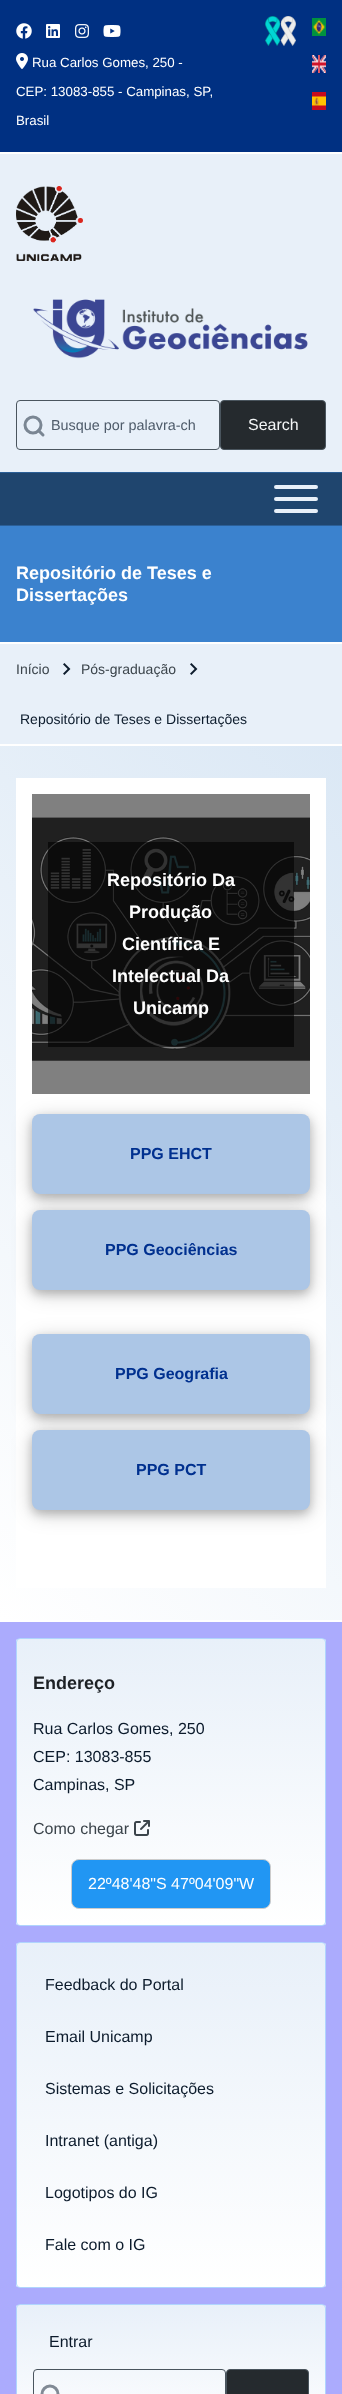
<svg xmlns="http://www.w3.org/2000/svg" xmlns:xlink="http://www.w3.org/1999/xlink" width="342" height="2394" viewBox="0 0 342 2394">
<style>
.cls-1{font:13.3px Liberation Sans;fill:#ffffff}
.cls-2{font:14.4px Liberation Sans;fill:#4e5b6a}
.cls-3{font:16px Liberation Sans;fill:#f4f6f7}
.cls-4{font:bold 18px Liberation Sans;fill:#ffffff}
.cls-5{font:14px Liberation Sans;fill:#3b444b}
.cls-6{font:14px Liberation Sans;fill:#0c1b2c}
.cls-7{font:bold 16px Liberation Sans;fill:#00308f}
.cls-8{font:bold 18px Liberation Sans;fill:#1d2125}
.cls-9{font:16px Liberation Sans;fill:#0c1b2c}
.cls-10{font:16px Liberation Sans;fill:#3b444b}
.cls-11{font:16px Liberation Sans;fill:#ffffff}
</style>
<defs>
<linearGradient id="g1" gradientUnits="userSpaceOnUse" x1="-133" y1="1487" x2="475" y2="879"><stop offset="0" stop-color="#ffffff"/><stop offset="1" stop-color="#dbe8f5"/></linearGradient>
<clipPath id="clip1"><rect x="16" y="1638" width="310" height="288" rx="4"/></clipPath>
<linearGradient id="g2" gradientUnits="userSpaceOnUse" x1="171" y1="1925" x2="171" y2="1639"><stop offset="0" stop-color="#ffffff"/><stop offset="1" stop-color="#e8f0f9"/></linearGradient>
<clipPath id="clip2"><rect x="16" y="1942" width="310" height="346" rx="4"/></clipPath>
<linearGradient id="g3" gradientUnits="userSpaceOnUse" x1="171" y1="2287" x2="171" y2="1943"><stop offset="0" stop-color="#ffffff"/><stop offset="1" stop-color="#e8f0f9"/></linearGradient>
<clipPath id="clip3"><rect x="16" y="2304" width="310" height="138" rx="4"/></clipPath>
<linearGradient id="g4" gradientUnits="userSpaceOnUse" x1="171" y1="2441" x2="171" y2="2305"><stop offset="0" stop-color="#ffffff"/><stop offset="1" stop-color="#e8f0f9"/></linearGradient>
</defs>
<rect width="100%" height="100%" fill="#e8f0f9"/>
<rect fill="#003082" x="0" y="0" width="342" height="152"/>
<rect fill="#ffffff" x="0" y="152" width="342" height="2"/>
<image xlink:href="image0.png" x="16" y="23" width="16" height="16"/>
<image xlink:href="image1.png" x="46" y="24" width="14" height="14"/>
<image xlink:href="image2.png" x="75" y="24" width="14" height="14"/>
<image xlink:href="image3.png" x="103" y="25" width="18" height="12"/>
<image xlink:href="image4.png" x="16" y="53" width="12" height="16"/>
<image xlink:href="image5.png" x="265" y="16" width="31" height="30"/>
<image xlink:href="image6.png" x="312" y="18" width="14" height="18"/>
<image xlink:href="image7.png" x="312" y="55" width="14" height="18"/>
<image xlink:href="image8.png" x="312" y="92" width="14" height="18"/>
<image xlink:href="image9.png" x="16" y="186" width="67" height="75"/>
<image xlink:href="image10.png" x="33" y="299" width="275" height="60"/>
<rect fill="none" stroke="#4a555e" x="16.5" y="400.5" width="203" height="49" rx="3.5"/>
<circle fill="none" stroke="#7a8693" stroke-width="3" cx="33" cy="425" r="8"/>
<path fill="none" stroke="#7a8693" stroke-width="3" stroke-linecap="round" stroke-linejoin="round" d="M43 435L38.5 430.5"/>
<rect fill="#252a2e" stroke="#4a555e" x="220.5" y="400.5" width="105" height="49" rx="3.5"/>
<rect fill="#1f456e" x="0" y="473" width="342" height="52"/>
<rect fill="#2b5f97" x="0" y="472" width="342" height="1"/>
<rect fill="#2b5f97" x="0" y="525" width="342" height="1"/>
<path fill="none" stroke="#e8f0f9" stroke-width="4" stroke-linecap="round" stroke-linejoin="round" d="M276 511H316ZM276 499H316ZM276 487H316Z"/>
<rect fill="#3b82ce" x="0" y="526" width="342" height="116"/>
<rect fill="#ffffff" x="0" y="642" width="342" height="2"/>
<rect fill="#ffffff" x="0" y="744" width="342" height="2"/>
<image xlink:href="image11.png" x="63" y="663" width="8" height="12"/>
<image xlink:href="image11.png" x="190" y="663" width="8" height="12"/>
<rect fill="url(#g1)" x="0" y="746" width="342" height="874"/>
<rect fill="#ffffff" x="0" y="1620" width="342" height="2"/>
<rect fill="#ffffff" x="16" y="778" width="310" height="810"/>
<rect fill="#808080" x="32" y="794" width="278" height="300"/>
<image xlink:href="image12.png" x="32" y="817" width="278" height="244"/>
<rect fill="#000000" fill-opacity="0.6" x="48" y="842" width="246" height="205"/>
<rect fill="#000000" fill-opacity="0.19" filter="blur(10px)" x="32" y="1118" width="278" height="80" rx="8"/>
<rect fill="#000000" fill-opacity="0.2" filter="blur(5px)" x="32" y="1118" width="278" height="80" rx="8"/>
<rect fill="#acc6e6" x="32" y="1114" width="278" height="80" rx="8"/>
<rect fill="#000000" fill-opacity="0.19" filter="blur(10px)" x="32" y="1214" width="278" height="80" rx="8"/>
<rect fill="#000000" fill-opacity="0.2" filter="blur(5px)" x="32" y="1214" width="278" height="80" rx="8"/>
<rect fill="#acc6e6" x="32" y="1210" width="278" height="80" rx="8"/>
<rect fill="#000000" fill-opacity="0.19" filter="blur(10px)" x="32" y="1338" width="278" height="80" rx="8"/>
<rect fill="#000000" fill-opacity="0.2" filter="blur(5px)" x="32" y="1338" width="278" height="80" rx="8"/>
<rect fill="#acc6e6" x="32" y="1334" width="278" height="80" rx="8"/>
<rect fill="#000000" fill-opacity="0.19" filter="blur(10px)" x="32" y="1434" width="278" height="80" rx="8"/>
<rect fill="#000000" fill-opacity="0.2" filter="blur(5px)" x="32" y="1434" width="278" height="80" rx="8"/>
<rect fill="#acc6e6" x="32" y="1430" width="278" height="80" rx="8"/>
<rect fill="#ababfd" x="0" y="1622" width="342" height="772"/>
<g clip-path="url(#clip1)">
<rect fill="url(#g2)" x="16" y="1639" width="310" height="286"/>
</g>
<rect fill="none" stroke="#b0d5fd" x="16.5" y="1638.5" width="309" height="287" rx="3.5"/>
<image xlink:href="image13.png" x="134" y="1820" width="16" height="16"/>
<rect fill="#2196f3" stroke="#cccccc" x="71.5" y="1859.5" width="199" height="49" rx="7.5"/>
<g clip-path="url(#clip2)">
<rect fill="url(#g3)" x="16" y="1943" width="310" height="344"/>
</g>
<rect fill="none" stroke="#b0d5fd" x="16.5" y="1942.5" width="309" height="345" rx="3.5"/>
<g clip-path="url(#clip3)">
<rect fill="url(#g4)" x="16" y="2305" width="310" height="89"/>
</g>
<rect fill="none" stroke="#b0d5fd" x="16.5" y="2304.5" width="309" height="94" rx="3.5"/>
<rect fill="none" stroke="#4a555e" x="33.5" y="2369.5" width="192" height="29" rx="3.5"/>
<circle fill="none" stroke="#818a95" stroke-width="3" cx="50" cy="2394" r="8"/>
<rect fill="#252a2e" stroke="#4a555e" x="226.5" y="2369.5" width="82" height="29" rx="3.5"/>
<text class="cls-1" x="32" y="67">Rua Carlos Gomes, 250 -</text>
<text class="cls-1" x="16" y="96">CEP: 13083-855 - Campinas, SP,</text>
<text class="cls-1" x="16" y="125">Brasil</text>
<text class="cls-2" x="51" y="430">Busque por palavra-ch</text>
<text class="cls-3" x="248" y="430">Search</text>
<text class="cls-4"><tspan x="16" y="579">Repositório de Teses e</tspan><tspan x="16" y="601">Dissertações</tspan></text>
<text class="cls-5" x="16" y="674">Início</text>
<text class="cls-5" x="81" y="674">Pós-graduação</text>
<text class="cls-6" x="20" y="724">Repositório de Teses e Dissertações</text>
<text class="cls-4" x="107" y="886">Repositório Da</text>
<text class="cls-4" x="129" y="918">Produção</text>
<text class="cls-4" x="122" y="950">Científica E</text>
<text class="cls-4" x="112" y="982">Intelectual Da</text>
<text class="cls-4" x="133" y="1014">Unicamp</text>
<text class="cls-7" x="130" y="1159">PPG EHCT</text>
<text class="cls-7" x="105" y="1255">PPG Geociências</text>
<text class="cls-7" x="115" y="1379">PPG Geografia</text>
<text class="cls-7" x="136" y="1475">PPG PCT</text>
<text class="cls-8" x="33" y="1689">Endereço</text>
<text class="cls-9"><tspan x="33" y="1734">Rua Carlos Gomes, 250</tspan><tspan x="33" y="1762">CEP: 13083-855</tspan><tspan x="33" y="1790">Campinas, SP</tspan></text>
<text class="cls-10" x="33" y="1834">Como chegar</text>
<text class="cls-11" x="88" y="1889">22º48'48"S 47º04'09"W</text>
<text class="cls-9" x="45" y="1990">Feedback do Portal</text>
<text class="cls-9" x="45" y="2042">Email Unicamp</text>
<text class="cls-9" x="45" y="2094">Sistemas e Solicitações</text>
<text class="cls-9" x="45" y="2146">Intranet (antiga)</text>
<text class="cls-9" x="45" y="2198">Logotipos do IG</text>
<text class="cls-9" x="45" y="2250">Fale com o IG</text>
<text class="cls-9" x="49" y="2347">Entrar</text>
</svg>
